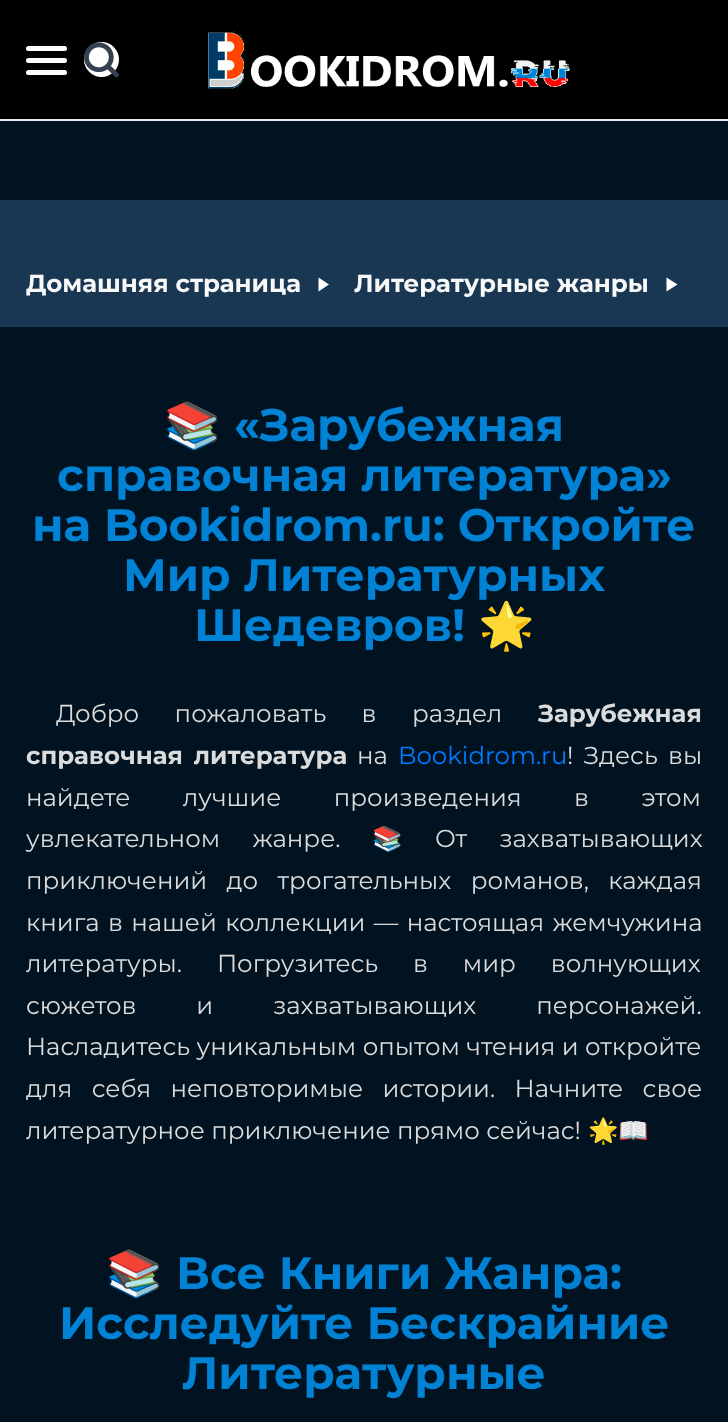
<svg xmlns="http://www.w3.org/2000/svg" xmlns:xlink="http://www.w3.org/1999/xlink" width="728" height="1422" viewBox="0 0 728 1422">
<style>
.cls-1{font:bold 24.5px Montserrat;fill:#f8f8f8}
.cls-2{font:bold 45.5px Noto Color Emoji;fill:#0182d5}
.cls-3{font:bold 45.5px Montserrat;fill:#0182d5}
.cls-4{font:24.5px Montserrat;fill:#dbdbdb}
.cls-5{font:bold 24.5px Montserrat;fill:#dbdbdb}
.cls-6{font:24.5px Montserrat;fill:#007bff}
.cls-7{font:24.5px Noto Color Emoji;fill:#dbdbdb}
</style>
<rect width="100%" height="100%" fill="#011320"/>
<rect fill="#000000" x="0" y="0" width="728" height="119"/>
<rect fill="#e9edf1" x="0" y="119" width="728" height="2"/>
<rect fill="#ffffff" x="26" y="46" width="41" height="5" rx="2.5"/>
<rect fill="#ffffff" x="26" y="58" width="41" height="5" rx="2.5"/>
<rect fill="#ffffff" x="26" y="70" width="41" height="5" rx="2.5"/>
<circle fill="#ffffff" cx="101.5" cy="59.5" r="17.5"/>
<image xlink:href="image0.png" x="84" y="42" width="35" height="36"/>
<image xlink:href="image1.png" x="208" y="31" width="362" height="58"/>
<rect fill="#193753" x="0" y="200" width="728" height="127"/>
<path fill="#ffffff" d="M318.5 277.5V291.5L329 284.5Z"/>
<path fill="#ffffff" d="M666.5 277.5V291.5L677.5 284.5Z"/>
<text class="cls-1" x="26" y="292">Домашняя страница</text>
<text class="cls-1" x="354" y="292">Литературные жанры</text>
<text class="cls-2" x="164" y="441">📚</text>
<text class="cls-3" x="234" y="441">«Зарубежная</text>
<text class="cls-3" x="57" y="491">справочная литература»</text>
<text class="cls-3" x="32" y="541">на Bookidrom.ru: Откройте</text>
<text class="cls-3" x="123" y="591">Мир Литературных</text>
<text class="cls-3" x="194" y="641">Шедевров!</text>
<text class="cls-2" x="478" y="641">🌟</text>
<text class="cls-4" x="56" y="722" word-spacing="29">Добро пожаловать в раздел</text>
<text class="cls-5" x="538" y="722">Зарубежная</text>
<text class="cls-5" x="26" y="764" word-spacing="4">справочная литература</text>
<text class="cls-4" x="357" y="764">на</text>
<text class="cls-6" x="398" y="764">Bookidrom.ru</text>
<text class="cls-4" x="567" y="764" word-spacing="4">! Здесь вы</text>
<text class="cls-4"><tspan x="26" y="806" word-spacing="46">найдете лучшие произведения в этом</tspan><tspan x="26" y="847" word-spacing="26">увлекательном жанре.</tspan></text>
<text class="cls-7" x="372" y="847">📚</text>
<text class="cls-4" x="435" y="847" word-spacing="26">От захватывающих</text>
<text class="cls-4"><tspan x="26" y="889" word-spacing="13">приключений до трогательных романов, каждая</tspan><tspan x="26" y="931" word-spacing="2">книга в нашей коллекции — настоящая жемчужина</tspan><tspan x="26" y="972" word-spacing="28.5">литературы. Погрузитесь в мир волнующих</tspan><tspan x="26" y="1014" word-spacing="53.5">сюжетов и захватывающих персонажей.</tspan><tspan x="26" y="1055">Насладитесь уникальным опытом чтения и откройте</tspan><tspan x="26" y="1097" word-spacing="13">для себя неповторимые истории. Начните свое</tspan><tspan x="26" y="1139">литературное приключение прямо сейчас!</tspan></text>
<text class="cls-7" x="588" y="1139">🌟📖</text>
<text class="cls-2" x="106" y="1289">📚</text>
<text class="cls-3" x="176" y="1289">Все Книги Жанра:</text>
<text class="cls-3" x="59" y="1339">Исследуйте Бескрайние</text>
<text class="cls-3" x="182" y="1389">Литературные</text>
</svg>
